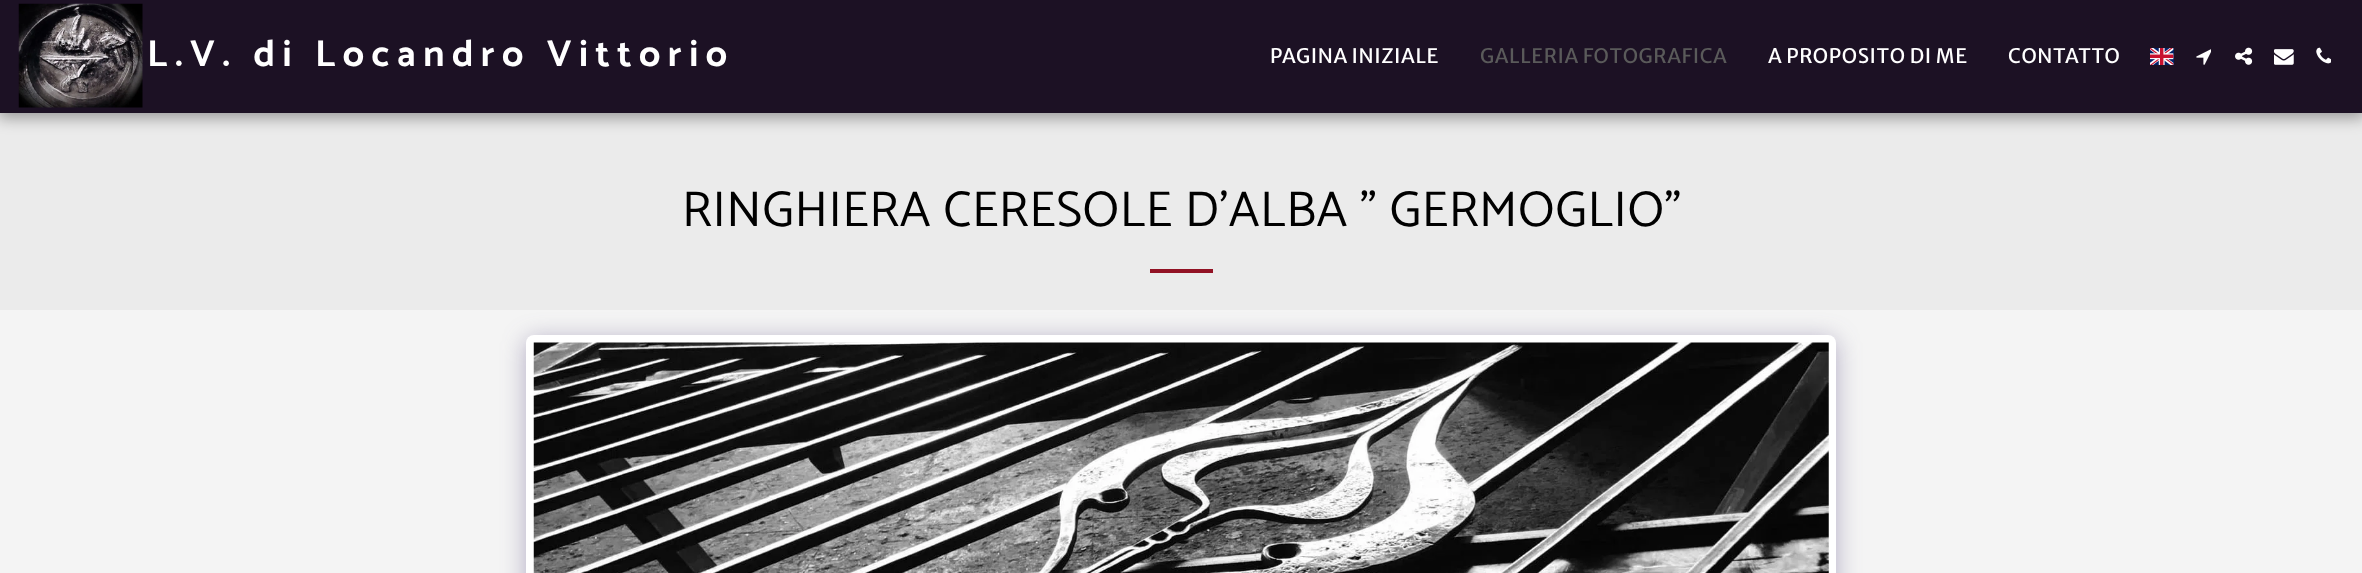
<svg xmlns="http://www.w3.org/2000/svg" xmlns:xlink="http://www.w3.org/1999/xlink" width="2362" height="573" viewBox="0 0 2362 573">
<style>
.cls-1{font:bold 37.5px Catamaran;letter-spacing:7.5px;fill:#ffffff}
.cls-2{font:20px Merriweather Sans;letter-spacing:0.6px;fill:#ffffff}
.cls-3{font:20px Merriweather Sans;letter-spacing:0.6px;fill:#5a5a5a}
.cls-4{font:50.4px Catamaran;letter-spacing:0.6px;fill:#000000}
</style>
<rect width="100%" height="100%" fill="#f4f4f4"/>
<rect fill="#ebebeb" x="0" y="113" width="2362" height="197"/>
<rect fill="#000000" fill-opacity="0.35" filter="blur(7.5px)" x="-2" y="0" width="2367" height="118"/>
<rect fill="#1c1124" x="0" y="0" width="2362" height="113"/>
<image xlink:href="image0.png" x="18" y="3" width="125" height="105"/>
<image xlink:href="image1.png" x="2150" y="48" width="24" height="17"/>
<image xlink:href="image2.png" x="2196" y="49" width="15" height="16"/>
<image xlink:href="image3.png" x="2235" y="47" width="18" height="18"/>
<image xlink:href="image4.png" x="2274" y="49" width="20" height="16"/>
<image xlink:href="image5.png" x="2316" y="47" width="15" height="17"/>
<rect fill="#921224" x="1150" y="269" width="63" height="4"/>
<rect fill="#4d3f7a" fill-opacity="0.4" filter="blur(12.5px)" x="526" y="339" width="1310" height="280" rx="8"/>
<rect fill="#ffffff" x="526" y="335" width="1310" height="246" rx="8"/>
<image xlink:href="image6.png" x="533" y="342" width="1296" height="231"/>
<text class="cls-1" x="147" y="66">L.V. di Locandro Vittorio</text>
<text class="cls-2" x="1270" y="63">PAGINA INIZIALE</text>
<text class="cls-3" x="1480" y="63">GALLERIA FOTOGRAFICA</text>
<text class="cls-2" x="1768" y="63">A PROPOSITO DI ME</text>
<text class="cls-2" x="2008" y="63">CONTATTO</text>
<text class="cls-4" x="682" y="226">RINGHIERA CERESOLE D'ALBA " GERMOGLIO"</text>
</svg>
